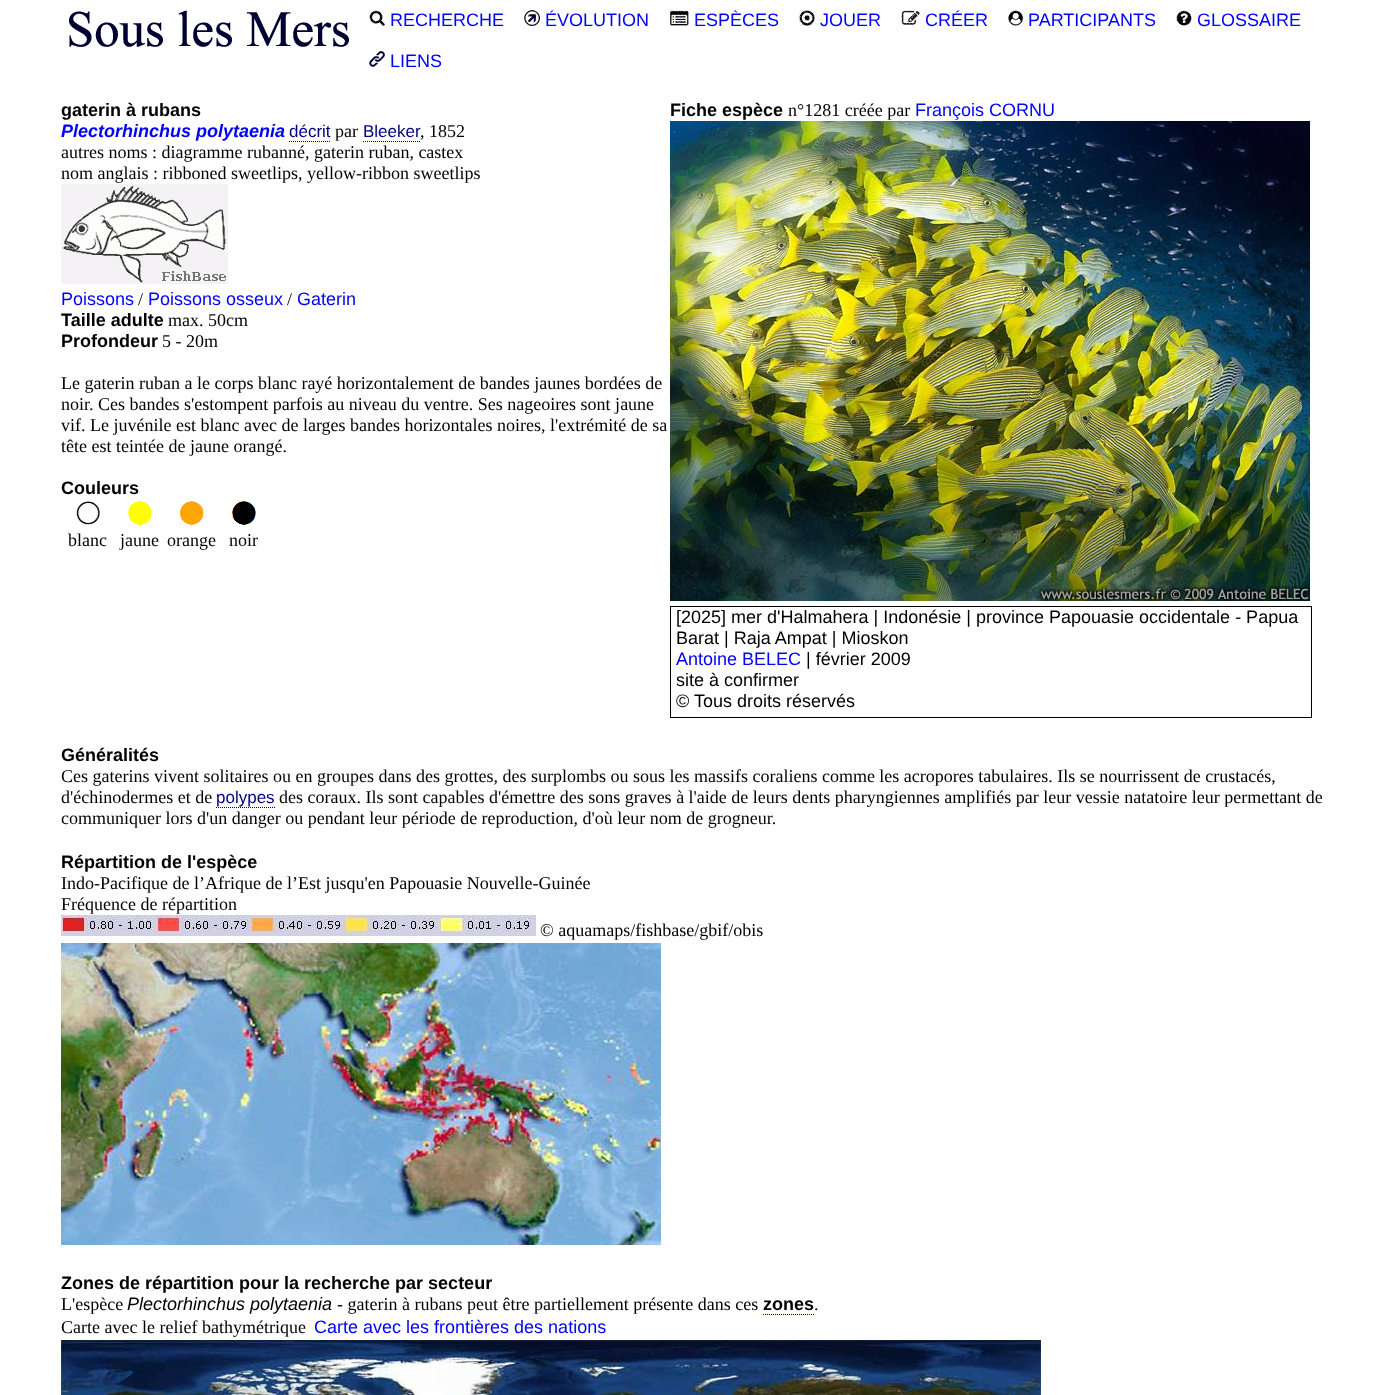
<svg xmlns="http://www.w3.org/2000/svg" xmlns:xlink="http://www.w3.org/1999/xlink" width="1397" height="1395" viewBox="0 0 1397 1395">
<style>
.cls-1{font:18px Liberation Sans;fill:#0000ff}
.cls-2{font:bold 18px Liberation Sans;fill:#000000}
.cls-3{font:italic bold 18px Liberation Sans;fill:#0000ff}
.cls-4{font:17px Liberation Sans;fill:#000080}
.cls-5{font:18px Liberation Serif;fill:#000000}
.cls-6{font:18px Liberation Sans;fill:#000000}
.cls-7{font:italic 18px Liberation Sans;fill:#000000}
</style>
<rect width="100%" height="100%" fill="#ffffff"/>
<image xlink:href="image0.png" x="69" y="10" width="280" height="37"/>
<image xlink:href="image1.png" x="369" y="10" width="16" height="16"/>
<image xlink:href="image2.png" x="524" y="10" width="16" height="16"/>
<image xlink:href="image3.png" x="669" y="10" width="20" height="16"/>
<image xlink:href="image4.png" x="799" y="10" width="16" height="16"/>
<image xlink:href="image5.png" x="901" y="10" width="19" height="15"/>
<image xlink:href="image6.png" x="1008" y="10" width="15" height="16"/>
<image xlink:href="image7.png" x="1176" y="10" width="16" height="16"/>
<image xlink:href="image8.png" x="369" y="51" width="16" height="16"/>
<path fill="none" stroke="#000080" stroke-dasharray="1 1" d="M289 141.5H331"/>
<path fill="none" stroke="#000080" stroke-dasharray="1 1" d="M363 141.5H420"/>
<image xlink:href="image9.png" x="61" y="184" width="167" height="100"/>
<image xlink:href="image10.png" x="76" y="501" width="24" height="24"/>
<image xlink:href="image11.png" x="128" y="501" width="24" height="24"/>
<image xlink:href="image12.png" x="180" y="501" width="24" height="24"/>
<image xlink:href="image13.png" x="232" y="501" width="24" height="24"/>
<image xlink:href="image14.png" x="670" y="121" width="640" height="480"/>
<rect fill="none" stroke="#000000" x="670.5" y="606.5" width="641" height="111"/>
<path fill="none" stroke="#000080" stroke-dasharray="1 1" d="M216 807.5H275"/>
<image xlink:href="image15.png" x="61" y="915" width="475" height="21"/>
<image xlink:href="image16.png" x="61" y="943" width="600" height="302"/>
<path fill="none" stroke="#000080" stroke-dasharray="1 1" d="M763 1314.5H814"/>
<image xlink:href="image17.png" x="61" y="1340" width="980" height="55"/>
<text class="cls-1" x="390" y="26">RECHERCHE</text>
<text class="cls-1" x="545" y="26">ÉVOLUTION</text>
<text class="cls-1" x="694" y="26">ESPÈCES</text>
<text class="cls-1" x="820" y="26">JOUER</text>
<text class="cls-1" x="925" y="26">CRÉER</text>
<text class="cls-1" x="1028" y="26">PARTICIPANTS</text>
<text class="cls-1" x="1197" y="26">GLOSSAIRE</text>
<text class="cls-1" x="390" y="67">LIENS</text>
<text class="cls-2" x="61" y="116">gaterin à rubans</text>
<text class="cls-3" x="61" y="137">Plectorhinchus polytaenia</text>
<text class="cls-4" x="289" y="137">décrit</text>
<text class="cls-5" x="335" y="137">par</text>
<text class="cls-4" x="363" y="137">Bleeker</text>
<text class="cls-5" x="420" y="137">, 1852</text>
<text class="cls-5"><tspan x="61" y="158">autres noms : diagramme rubanné, gaterin ruban, castex</tspan><tspan x="61" y="179">nom anglais : ribboned sweetlips, yellow-ribbon sweetlips</tspan></text>
<text class="cls-1" x="61" y="305">Poissons</text>
<text class="cls-5" x="138" y="305">/</text>
<text class="cls-1" x="148" y="305">Poissons osseux</text>
<text class="cls-5" x="287" y="305">/</text>
<text class="cls-1" x="297" y="305">Gaterin</text>
<text class="cls-2" x="61" y="326">Taille adulte</text>
<text class="cls-5" x="168" y="326">max. 50cm</text>
<text class="cls-2" x="61" y="347">Profondeur</text>
<text class="cls-5" x="162" y="347">5 - 20m</text>
<text class="cls-5"><tspan x="61" y="389">Le gaterin ruban a le corps blanc rayé horizontalement de bandes jaunes bordées de</tspan><tspan x="61" y="410">noir. Ces bandes s'estompent parfois au niveau du ventre. Ses nageoires sont jaune</tspan><tspan x="61" y="431">vif. Le juvénile est blanc avec de larges bandes horizontales noires, l'extrémité de sa</tspan><tspan x="61" y="452">tête est teintée de jaune orangé.</tspan></text>
<text class="cls-2" x="61" y="494">Couleurs</text>
<text class="cls-5" x="68" y="546">blanc</text>
<text class="cls-5" x="120" y="546">jaune</text>
<text class="cls-5" x="167" y="546">orange</text>
<text class="cls-5" x="229" y="546">noir</text>
<text class="cls-2" x="670" y="116">Fiche espèce</text>
<text class="cls-5" x="788" y="116">n°1281 créée par</text>
<text class="cls-1" x="915" y="116">François CORNU</text>
<text class="cls-6"><tspan x="676" y="623">[2025] mer d'Halmahera | Indonésie | province Papouasie occidentale - Papua</tspan><tspan x="676" y="644">Barat | Raja Ampat | Mioskon</tspan></text>
<text class="cls-1" x="676" y="665">Antoine BELEC</text>
<text class="cls-6" x="806" y="665">| février 2009</text>
<text class="cls-6"><tspan x="676" y="686">site à confirmer</tspan><tspan x="676" y="707">© Tous droits réservés</tspan></text>
<text class="cls-2" x="61" y="761">Généralités</text>
<text class="cls-5"><tspan x="61" y="782">Ces gaterins vivent solitaires ou en groupes dans des grottes, des surplombs ou sous les massifs coraliens comme les acropores tabulaires. Ils se nourrissent de crustacés,</tspan><tspan x="61" y="803">d'échinodermes et de</tspan></text>
<text class="cls-4" x="216" y="803">polypes</text>
<text class="cls-5" x="279" y="803">des coraux. Ils sont capables d'émettre des sons graves à l'aide de leurs dents pharyngiennes amplifiés par leur vessie natatoire leur permettant de</text>
<text class="cls-5" x="61" y="824">communiquer lors d'un danger ou pendant leur période de reproduction, d'où leur nom de grogneur.</text>
<text class="cls-2" x="61" y="868">Répartition de l'espèce</text>
<text class="cls-5"><tspan x="61" y="889">Indo-Pacifique de l’Afrique de l’Est jusqu'en Papouasie Nouvelle-Guinée</tspan><tspan x="61" y="910">Fréquence de répartition</tspan></text>
<text class="cls-5" x="540" y="936">© aquamaps/fishbase/gbif/obis</text>
<text class="cls-2" x="61" y="1289">Zones de répartition pour la recherche par secteur</text>
<text class="cls-5" x="61" y="1310">L'espèce</text>
<text class="cls-7" x="127" y="1310">Plectorhinchus polytaenia</text>
<text class="cls-5" x="337" y="1310">- gaterin à rubans peut être partiellement présente dans ces</text>
<text class="cls-2" x="763" y="1310">zones</text>
<text class="cls-5" x="814" y="1310">.</text>
<text class="cls-5" x="61" y="1333">Carte avec le relief bathymétrique</text>
<text class="cls-1" x="314" y="1333">Carte avec les frontières des nations</text>
</svg>
